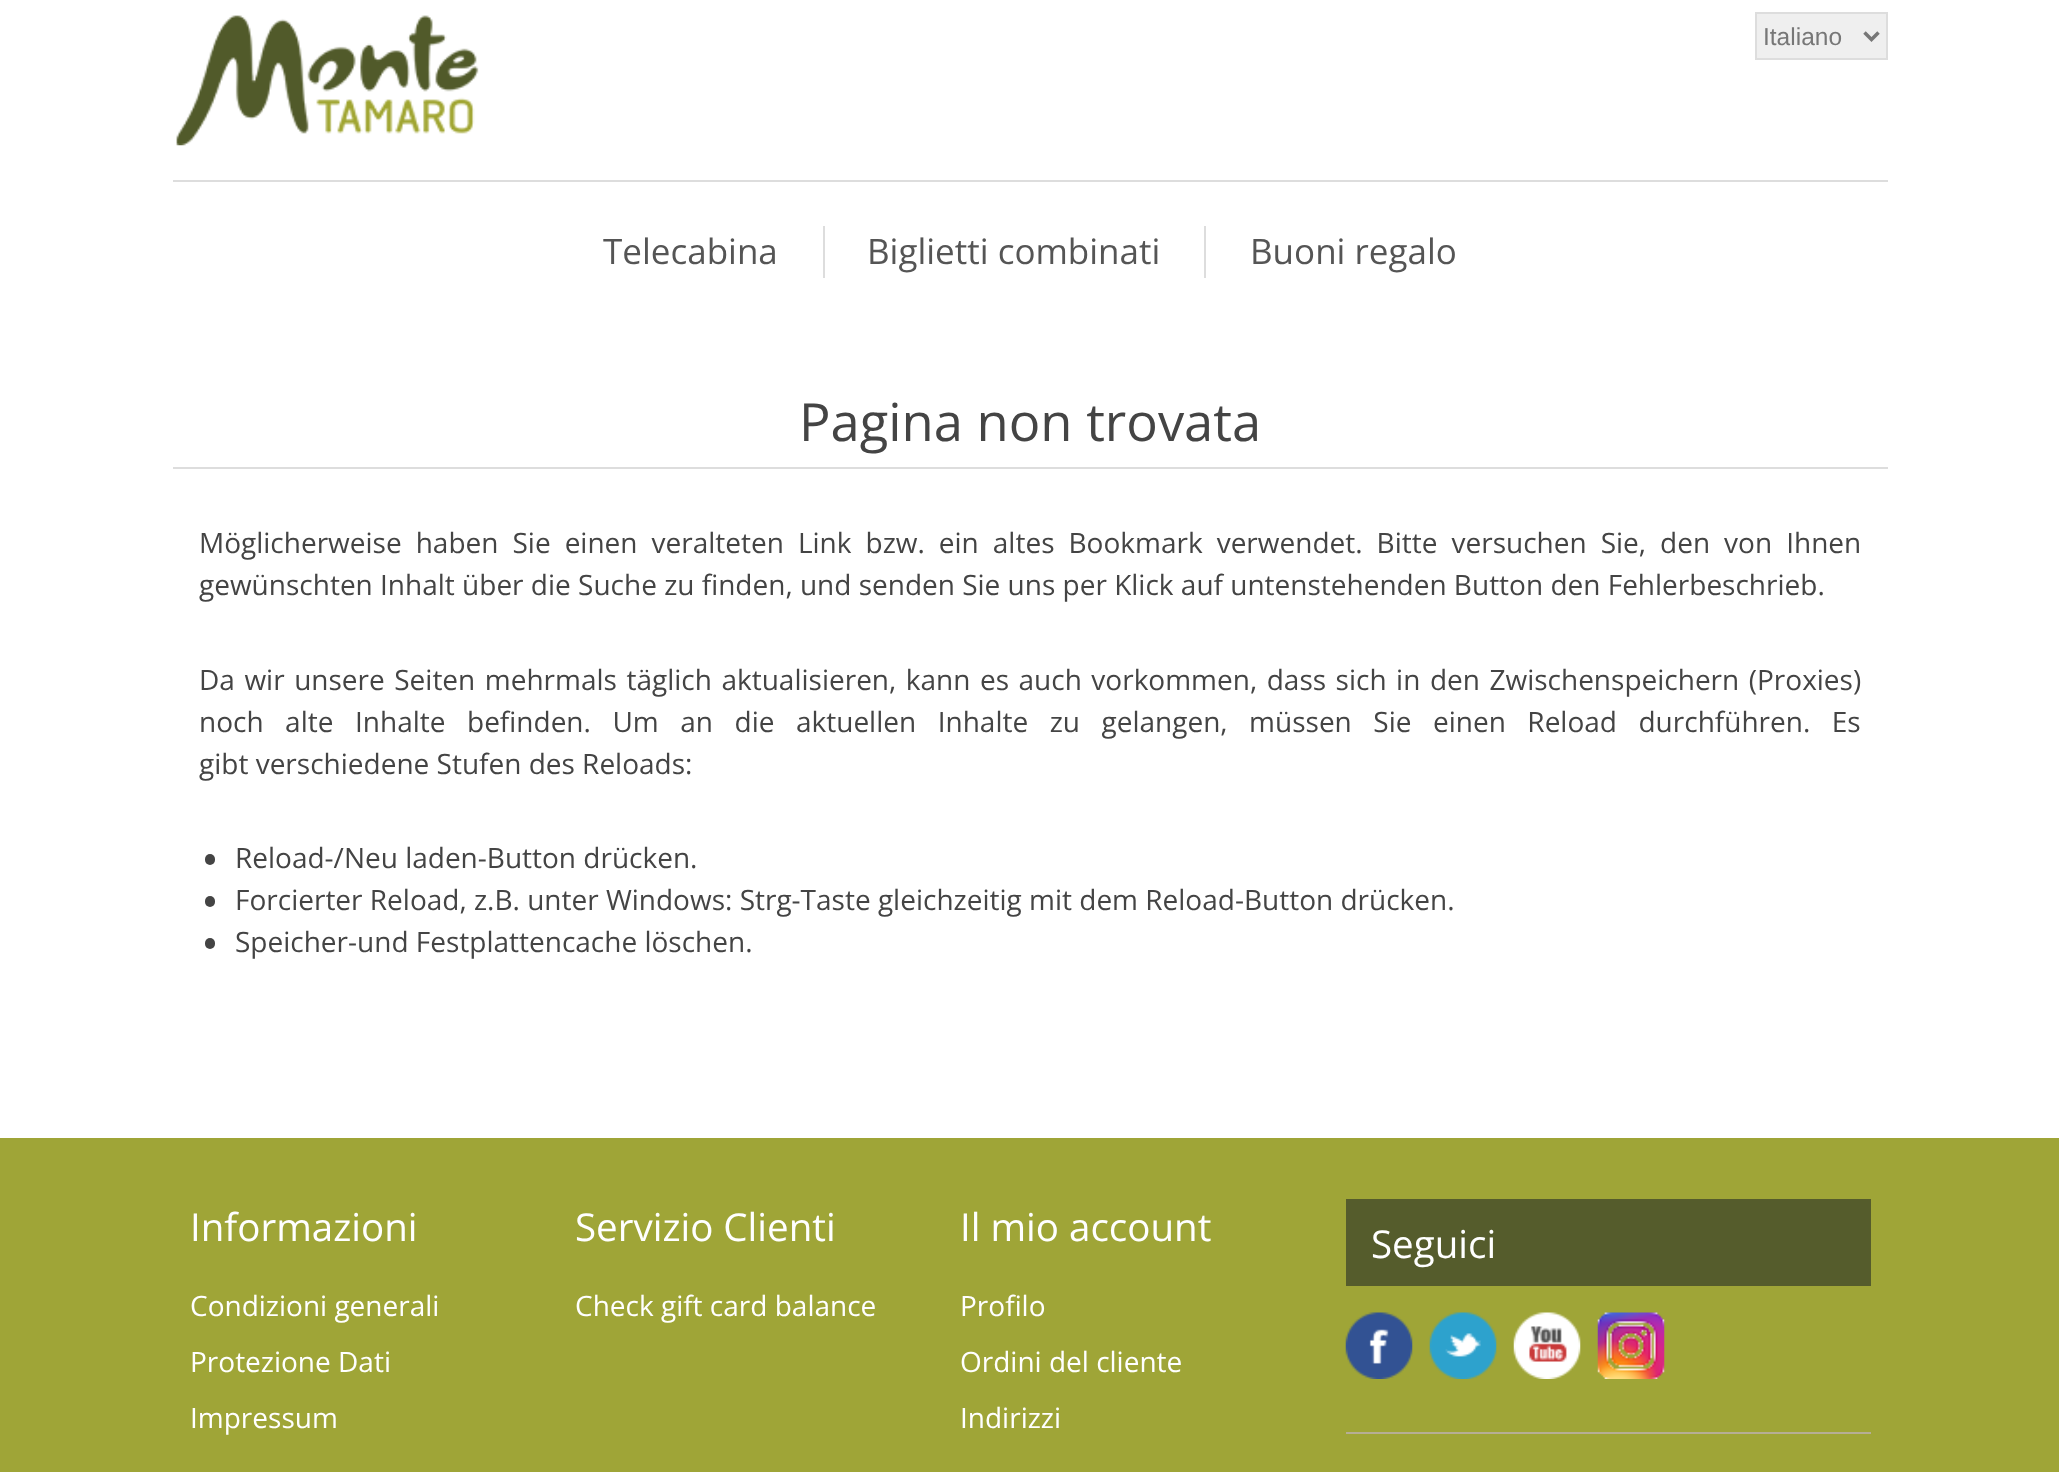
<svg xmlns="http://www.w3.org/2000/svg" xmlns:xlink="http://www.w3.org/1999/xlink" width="2059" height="1472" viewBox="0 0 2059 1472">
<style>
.cls-1{font:24.5px Liberation Sans;fill:#777777}
.cls-2{font:35px Open Sans;fill:#555555}
.cls-3{font:52.5px Open Sans;fill:#444444}
.cls-4{font:28px Open Sans;fill:#444444}
.cls-5{font:38.5px Open Sans;fill:#ffffff}
.cls-6{font:28px Open Sans;fill:#ffffff}
</style>
<rect width="100%" height="100%" fill="#ffffff"/>
<rect fill="#dddddd" x="173" y="180" width="1715" height="2"/>
<image xlink:href="image0.png" x="176" y="15" width="303" height="131"/>
<rect fill="#efefef" stroke="#dddddd" stroke-width="2" x="1756" y="13" width="131" height="46"/>
<path fill="none" stroke="#777777" stroke-width="3.5" d="M1864.5 32.5L1871.5 39.5L1878.5 32.5"/>
<rect fill="#dddddd" x="823" y="226" width="2" height="52"/>
<rect fill="#dddddd" x="1204" y="226" width="2" height="52"/>
<rect fill="#dddddd" x="173" y="467" width="1715" height="2"/>
<rect fill="#444444" x="205" y="854" width="10" height="11" rx="5"/>
<rect fill="#444444" x="205" y="896" width="10" height="11" rx="5"/>
<rect fill="#444444" x="205" y="938" width="10" height="11" rx="5"/>
<rect fill="#9fa537" x="0" y="1138" width="2059" height="334"/>
<rect fill="#555c2c" x="1346" y="1199" width="525" height="87"/>
<rect fill="#b6ae95" x="1346" y="1432" width="525" height="2"/>
<image xlink:href="image1.png" x="1345" y="1312" width="68" height="67"/>
<image xlink:href="image2.png" x="1429" y="1312" width="68" height="67"/>
<image xlink:href="image3.png" x="1513" y="1312" width="68" height="67"/>
<image xlink:href="image4.png" x="1597" y="1312" width="68" height="67"/>
<text class="cls-1" x="1763" y="45">Italiano</text>
<text class="cls-2" x="603" y="264">Telecabina</text>
<text class="cls-2" x="867" y="264">Biglietti combinati</text>
<text class="cls-2" x="1250" y="264">Buoni regalo</text>
<text class="cls-3" x="799" y="441">Pagina non trovata</text>
<text class="cls-4"><tspan x="199" y="553" word-spacing="6.75">Möglicherweise haben Sie einen veralteten Link bzw. ein altes Bookmark verwendet. Bitte versuchen Sie, den von Ihnen</tspan><tspan x="199" y="595">gewünschten Inhalt über die Suche zu finden, und senden Sie uns per Klick auf untenstehenden Button den Fehlerbeschrieb.</tspan></text>
<text class="cls-4"><tspan x="199" y="690" word-spacing="2.25">Da wir unsere Seiten mehrmals täglich aktualisieren, kann es auch vorkommen, dass sich in den Zwischenspeichern (Proxies)</tspan><tspan x="199" y="732" word-spacing="14.25">noch alte Inhalte befinden. Um an die aktuellen Inhalte zu gelangen, müssen Sie einen Reload durchführen. Es</tspan><tspan x="199" y="774">gibt verschiedene Stufen des Reloads:</tspan></text>
<text class="cls-4"><tspan x="235" y="868">Reload-/Neu laden-Button drücken.</tspan><tspan x="235" y="910">Forcierter Reload, z.B. unter Windows: Strg-Taste gleichzeitig mit dem Reload-Button drücken.</tspan><tspan x="235" y="952">Speicher-und Festplattencache löschen.</tspan></text>
<text class="cls-5" x="190" y="1241">Informazioni</text>
<text class="cls-6" x="190" y="1316">Condizioni generali</text>
<text class="cls-6" x="190" y="1372">Protezione Dati</text>
<text class="cls-6" x="190" y="1428">Impressum</text>
<text class="cls-5" x="575" y="1241">Servizio Clienti</text>
<text class="cls-6" x="575" y="1316">Check gift card balance</text>
<text class="cls-5" x="960" y="1241">Il mio account</text>
<text class="cls-6" x="960" y="1316">Profilo</text>
<text class="cls-6" x="960" y="1372">Ordini del cliente</text>
<text class="cls-6" x="960" y="1428">Indirizzi</text>
<text class="cls-5" x="1371" y="1258">Seguici</text>
</svg>
